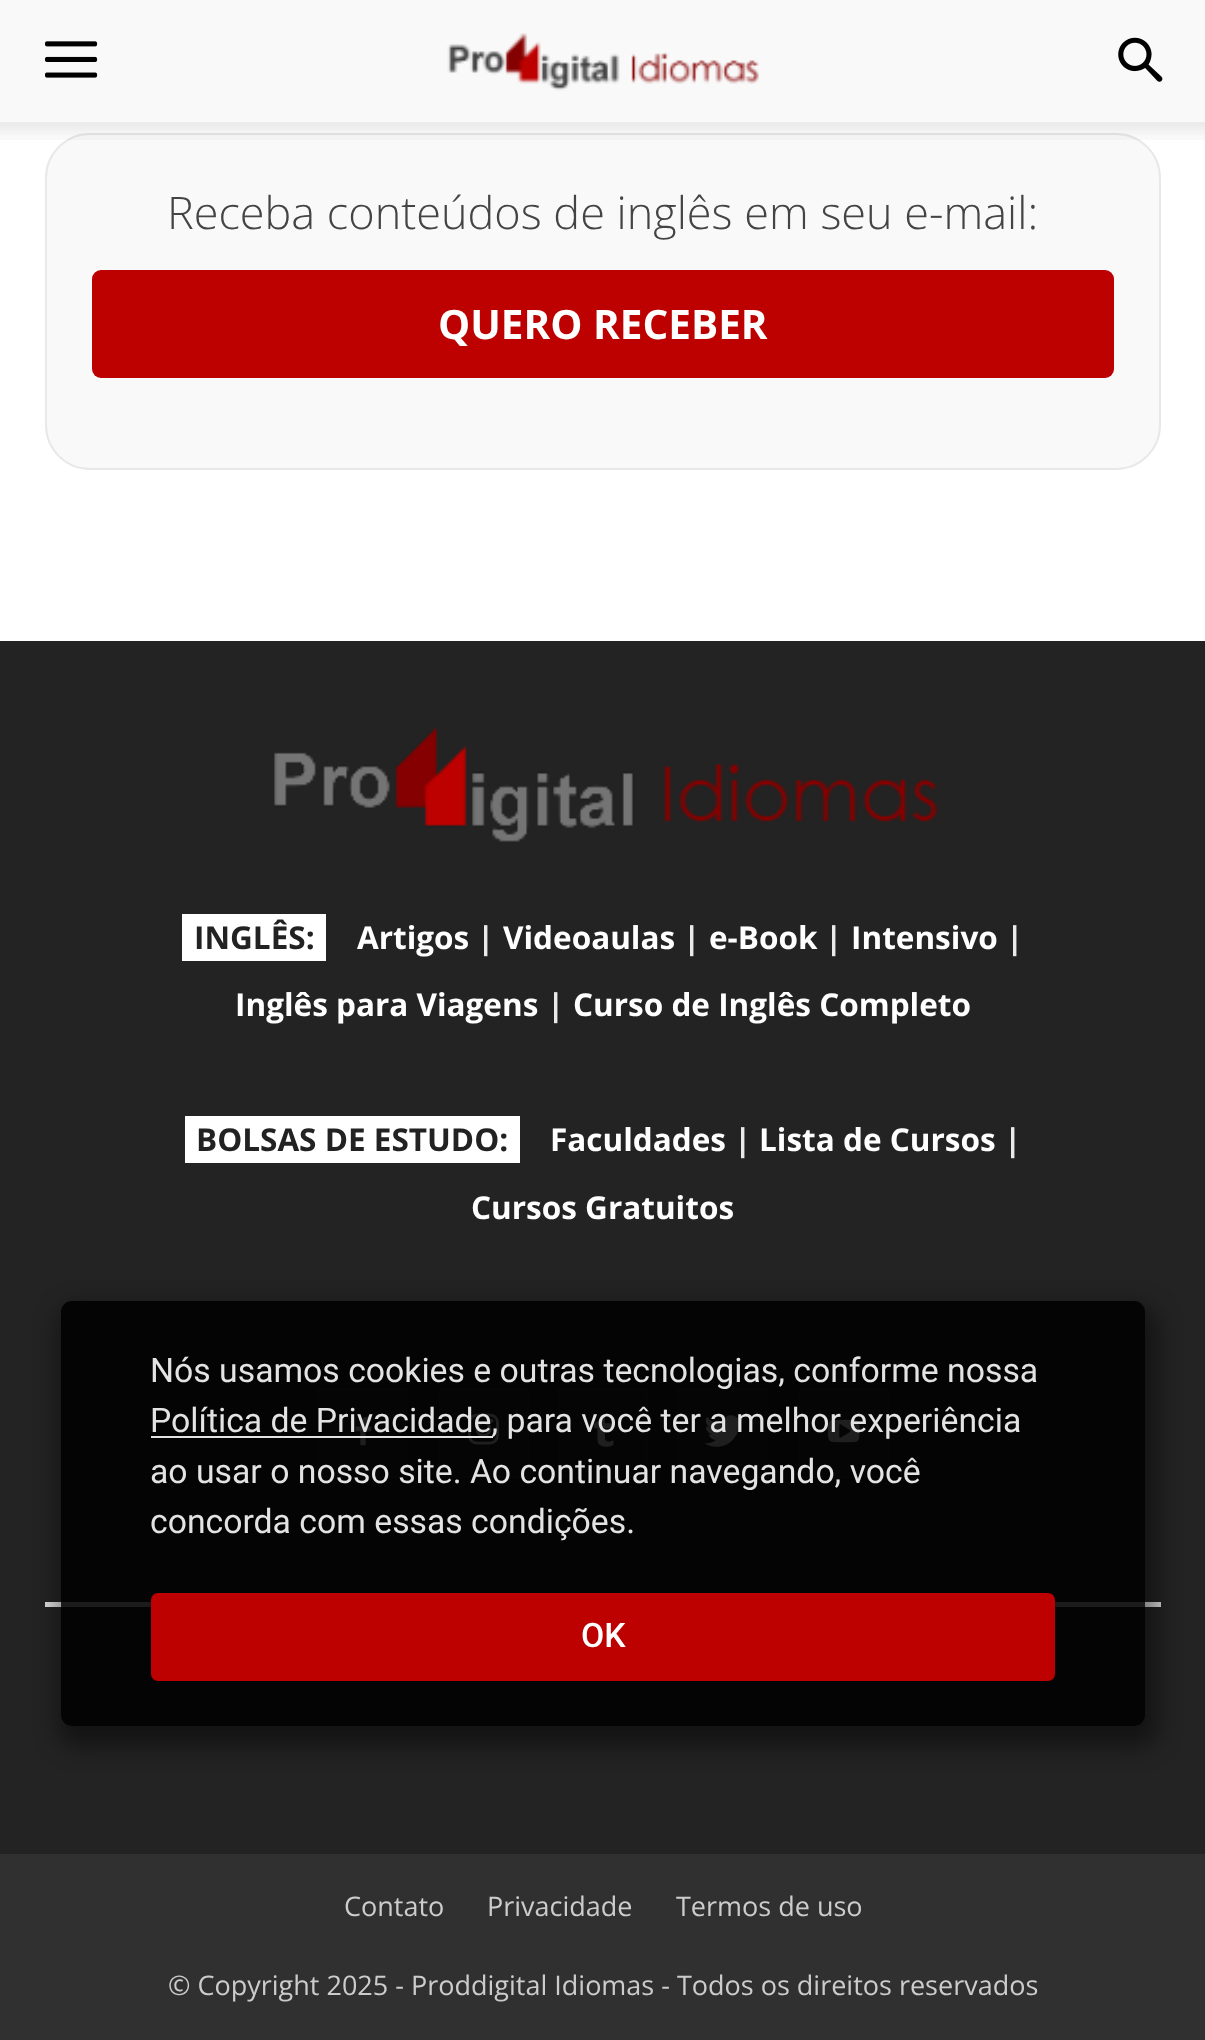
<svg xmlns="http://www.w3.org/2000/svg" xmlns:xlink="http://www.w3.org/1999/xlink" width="1205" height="2040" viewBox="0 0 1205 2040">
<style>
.cls-1{font:300 45px Open Sans;fill:#444444}
.cls-2{font:bold 40.5px Open Sans;fill:#ffffff}
.cls-3{font:bold 31.5px Open Sans;fill:#222222}
.cls-4{font:bold 31.5px Open Sans;fill:#ffffff}
.cls-5{font:bold 31.5px Open Sans;fill:#eaeaea}
.cls-6{font:27px Open Sans;fill:#cccccc}
.cls-7{font:33.75px Roboto;fill:#e3e3e3}
.cls-8{font:500 33.75px Roboto;fill:#ffffff}
</style>
<defs>
<clipPath id="clip1"><path d="M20 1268H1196V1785H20ZM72 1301H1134C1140 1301 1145 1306 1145 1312V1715C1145 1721 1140 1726 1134 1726H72C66 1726 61 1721 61 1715V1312C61 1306 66 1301 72 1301Z" clip-rule="evenodd"/></clipPath>
</defs>
<rect width="100%" height="100%" fill="#ffffff"/>
<rect fill="#f9f9f9" x="0" y="0" width="1205" height="122"/>
<image xlink:href="image0.png" x="45" y="41" width="53" height="37"/>
<image xlink:href="image1.png" x="447" y="33" width="312" height="58"/>
<image xlink:href="image2.png" x="1118" y="37" width="45" height="45"/>
<rect fill="#f9f9f9" stroke="#e8e8e8" stroke-width="2" x="46" y="134" width="1114" height="335" rx="44"/>
<image xlink:href="image3.png" x="0" y="122" width="1205" height="18"/>
<rect fill="#bd0000" x="92" y="270" width="1022" height="108" rx="9"/>
<rect fill="#232323" x="0" y="641" width="1205" height="1213"/>
<image xlink:href="image4.png" x="274" y="728" width="665" height="114"/>
<rect fill="#ffffff" x="182" y="914" width="144" height="47"/>
<rect fill="#ffffff" x="185" y="1116" width="335" height="47"/>
<rect fill="#2a2a2a" x="319" y="1390" width="86" height="86"/>
<image xlink:href="image5.png" x="355" y="1416" width="17" height="30"/>
<rect fill="none" stroke="#303030" stroke-width="2" x="318" y="1389" width="88" height="88"/>
<rect fill="#2a2a2a" x="441" y="1390" width="86" height="86"/>
<image xlink:href="image6.png" x="468" y="1413" width="31" height="32"/>
<rect fill="none" stroke="#303030" stroke-width="2" x="440" y="1389" width="88" height="88"/>
<rect fill="#2a2a2a" x="560" y="1390" width="86" height="86"/>
<image xlink:href="image7.png" x="594" y="1415" width="20" height="32"/>
<rect fill="none" stroke="#303030" stroke-width="2" x="559" y="1389" width="88" height="88"/>
<rect fill="#2a2a2a" x="679" y="1390" width="86" height="86"/>
<image xlink:href="image8.png" x="704" y="1415" width="39" height="32"/>
<rect fill="none" stroke="#303030" stroke-width="2" x="678" y="1389" width="88" height="88"/>
<rect fill="#2a2a2a" x="801" y="1390" width="86" height="86"/>
<image xlink:href="image9.png" x="828" y="1419" width="32" height="24"/>
<rect fill="none" stroke="#303030" stroke-width="2" x="800" y="1389" width="88" height="88"/>
<rect fill="#d9d9d9" x="45" y="1602" width="1116" height="5"/>
<rect fill="#303030" x="0" y="1854" width="1205" height="186"/>
<g clip-path="url(#clip1)">
<rect fill="#000000" fill-opacity="0.46" filter="blur(12.5px)" x="59" y="1307" width="1098" height="439" rx="18"/>
</g>
<rect fill="#000000" fill-opacity="0.88" x="61" y="1301" width="1084" height="425" rx="11"/>
<rect fill="#e3e3e3" x="151" y="1436" width="342" height="2"/>
<rect fill="#bd0000" x="151" y="1593" width="904" height="88" rx="7"/>
<text class="cls-1" x="167" y="229">Receba conteúdos de inglês em seu e-mail:</text>
<text class="cls-2" x="438" y="339">QUERO RECEBER</text>
<text class="cls-3" x="194" y="949">INGLÊS:</text>
<text class="cls-4" x="357" y="949">Artigos</text>
<text class="cls-5" x="477" y="949">|</text>
<text class="cls-4" x="503" y="949">Videoaulas</text>
<text class="cls-5" x="683" y="949">|</text>
<text class="cls-4" x="709" y="949">e-Book</text>
<text class="cls-5" x="825" y="949">|</text>
<text class="cls-4" x="851" y="949">Intensivo</text>
<text class="cls-5" x="1006" y="949">|</text>
<text class="cls-4" x="235" y="1016">Inglês para Viagens</text>
<text class="cls-5" x="547" y="1016">|</text>
<text class="cls-4" x="573" y="1016">Curso de Inglês Completo</text>
<text class="cls-3" x="196" y="1151">BOLSAS DE ESTUDO:</text>
<text class="cls-4" x="550" y="1151">Faculdades</text>
<text class="cls-5" x="734" y="1151">|</text>
<text class="cls-4" x="759" y="1151">Lista de Cursos</text>
<text class="cls-5" x="1004" y="1151">|</text>
<text class="cls-4" x="471" y="1219">Cursos Gratuitos</text>
<text class="cls-6" x="344" y="1916">Contato</text>
<text class="cls-6" x="487" y="1916">Privacidade</text>
<text class="cls-6" x="676" y="1916">Termos de uso</text>
<text class="cls-6" x="168" y="1995">© Copyright 2025 - Proddigital Idiomas - Todos os direitos reservados</text>
<text class="cls-7"><tspan x="150" y="1382">Nós usamos cookies e outras tecnologias, conforme nossa</tspan><tspan x="150" y="1432">Política de Privacidade, para você ter a melhor experiência</tspan><tspan x="150" y="1483">ao usar o nosso site. Ao continuar navegando, você</tspan><tspan x="150" y="1533">concorda com essas condições.</tspan></text>
<text class="cls-8" x="581" y="1647">OK</text>
</svg>
